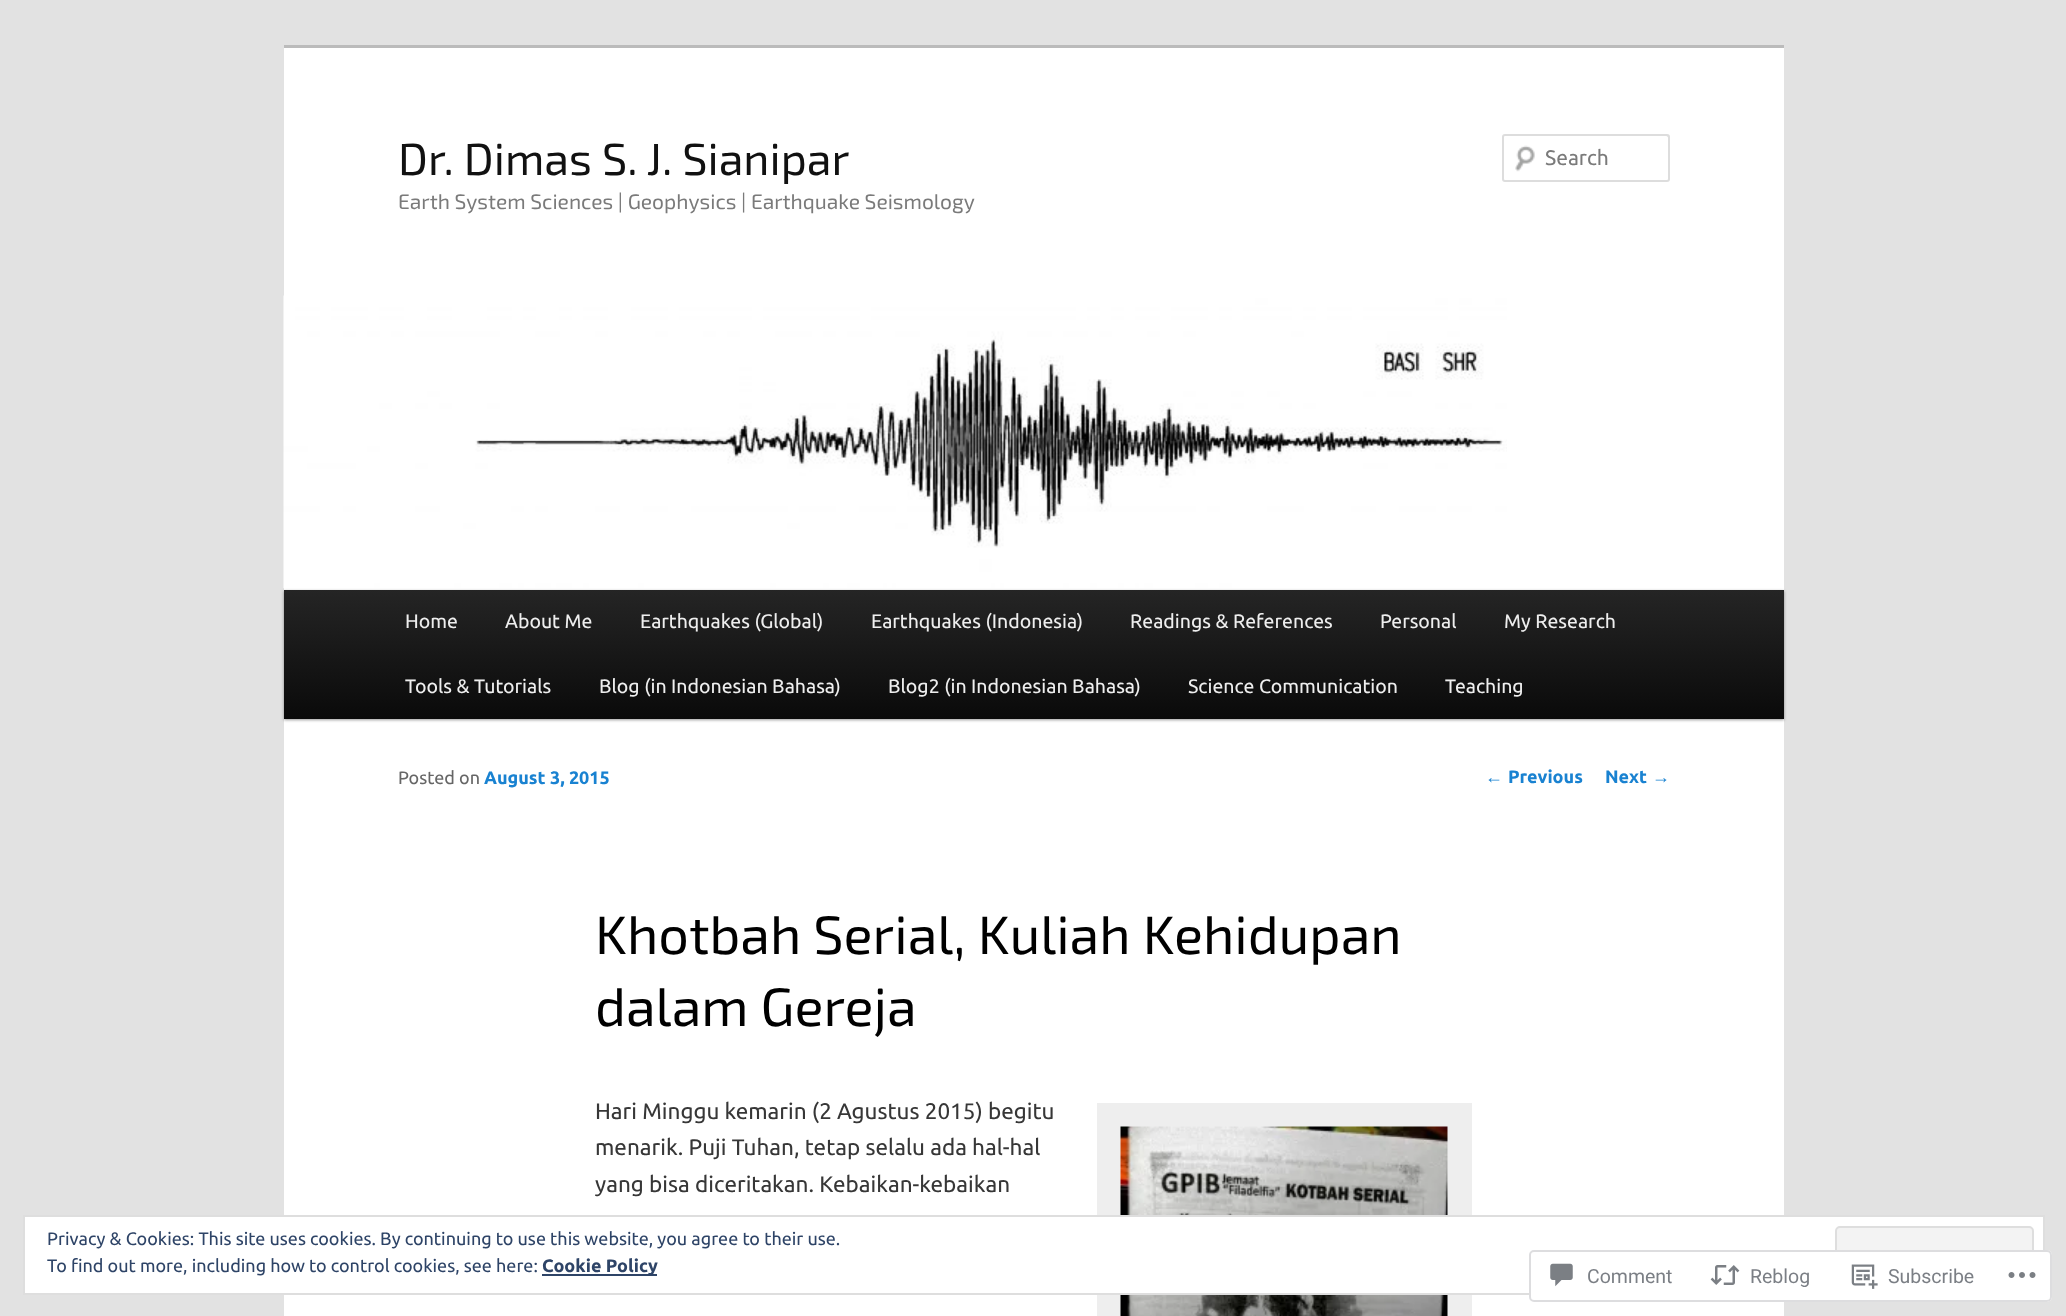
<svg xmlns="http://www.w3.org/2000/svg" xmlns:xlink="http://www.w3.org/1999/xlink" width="2066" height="1316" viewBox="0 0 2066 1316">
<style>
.cls-1{font:45px 'Exo 2';fill:#111111}
.cls-2{font:21px 'Exo 2';fill:#7a7a7a}
.cls-3{font:21px Ubuntu;fill:#7a7a7a}
.cls-4{font:19.5px Ubuntu;fill:#eeeeee}
.cls-5{font:18px Ubuntu;fill:#666666}
.cls-6{font:bold 18px Ubuntu;fill:#1982d1}
.cls-7{font:54px 'Exo 2';fill:#000000}
.cls-8{font:22.5px Ubuntu;fill:#373737}
.cls-9{font:18px Liberation Sans;fill:#1982d1}
.cls-10{font:18px Ubuntu;fill:#2e4467}
.cls-11{font:bold 18px Ubuntu;fill:#2e4467}
.cls-12{font:19.5px Roboto;fill:#7b7f85}
</style>
<defs>
<linearGradient id="g1" gradientUnits="userSpaceOnUse" x1="1034" y1="589" x2="1034" y2="719"><stop offset="0" stop-color="#252525"/><stop offset="1" stop-color="#0a0a0a"/></linearGradient>
</defs>
<rect width="100%" height="100%" fill="#e2e2e2"/>
<rect fill="#ffffff" x="284" y="48" width="1500" height="1268"/>
<rect fill="#bbbbbb" x="284" y="45" width="1500" height="3"/>
<image xlink:href="image0.png" x="1515" y="145" width="20" height="27"/>
<path fill="#e6e6e6" d="M1504 136H1666C1667 136 1668 137 1668 138V136C1668 136 1667 135 1666 135H1504C1504 135 1503 136 1503 136V138Z"/>
<rect fill="none" stroke="#dddddd" stroke-width="2" x="1503" y="135" width="166" height="46" rx="2"/>
<rect fill="#000000" fill-opacity="0.4" filter="blur(1.5px)" x="284" y="591" width="1500" height="129"/>
<image xlink:href="image1.png" x="283" y="295" width="1224" height="293"/>
<rect fill="url(#g1)" x="284" y="590" width="1500" height="129"/>
<rect fill="#eeeeee" x="1097" y="1103" width="375" height="213"/>
<image xlink:href="image2.png" x="1120" y="1126" width="328" height="190"/>
<rect fill="#ffffff" stroke="#dedede" stroke-width="2" x="24" y="1216" width="2020" height="78"/>
<rect fill="#f3f3f3" stroke="#dedede" stroke-width="2" x="1836" y="1227" width="197" height="56" rx="4"/>
<rect fill="#2e4467" x="542" y="1274" width="115" height="2"/>
<rect fill="#ffffff" fill-opacity="0.98" x="1529" y="1250" width="523" height="52" rx="5"/>
<rect fill="none" stroke="#dcdcde" stroke-opacity="0.98" stroke-width="2" x="1530" y="1251" width="521" height="50" rx="4"/>
<image xlink:href="image3.png" x="1550" y="1263" width="23" height="24"/>
<image xlink:href="image4.png" x="1710" y="1265" width="30" height="20"/>
<image xlink:href="image5.png" x="1851" y="1264" width="27" height="25"/>
<image xlink:href="image6.png" x="2008" y="1272" width="28" height="6"/>
<text class="cls-1" x="398" y="175">Dr. Dimas S. J. Sianipar</text>
<text class="cls-2" x="398" y="209">Earth System Sciences | Geophysics | Earthquake Seismology</text>
<text class="cls-3" x="1545" y="165">Search</text>
<text class="cls-4" x="405" y="628">Home</text>
<text class="cls-4" x="505" y="628">About Me</text>
<text class="cls-4" x="640" y="628">Earthquakes (Global)</text>
<text class="cls-4" x="871" y="628">Earthquakes (Indonesia)</text>
<text class="cls-4" x="1130" y="628">Readings &amp; References</text>
<text class="cls-4" x="1380" y="628">Personal</text>
<text class="cls-4" x="1504" y="628">My Research</text>
<text class="cls-4" x="405" y="693">Tools &amp; Tutorials</text>
<text class="cls-4" x="599" y="693">Blog (in Indonesian Bahasa)</text>
<text class="cls-4" x="888" y="693">Blog2 (in Indonesian Bahasa)</text>
<text class="cls-4" x="1188" y="693">Science Communication</text>
<text class="cls-4" x="1445" y="693">Teaching</text>
<text class="cls-5" x="398" y="784">Posted on</text>
<text class="cls-6" x="484" y="784">August 3, 2015</text>
<text class="cls-7"><tspan x="595" y="954">Khotbah Serial, Kuliah Kehidupan</tspan><tspan x="595" y="1026">dalam Gereja</tspan></text>
<text class="cls-8"><tspan x="595" y="1119">Hari Minggu kemarin (2 Agustus 2015) begitu</tspan><tspan x="595" y="1155">menarik. Puji Tuhan, tetap selalu ada hal-hal</tspan><tspan x="595" y="1192">yang bisa diceritakan. Kebaikan-kebaikan</tspan></text>
<text class="cls-9" x="1485" y="783">←</text>
<text class="cls-6" x="1508" y="783">Previous</text>
<text class="cls-6" x="1605" y="783">Next</text>
<text class="cls-9" x="1652" y="783">→</text>
<text class="cls-10"><tspan x="47" y="1245">Privacy &amp; Cookies: This site uses cookies. By continuing to use this website, you agree to their use.</tspan><tspan x="47" y="1272">To find out more, including how to control cookies, see here:</tspan></text>
<text class="cls-11" x="542" y="1272">Cookie Policy</text>
<text class="cls-12" x="1587" y="1283">Comment</text>
<text class="cls-12" x="1750" y="1283">Reblog</text>
<text class="cls-12" x="1888" y="1283">Subscribe</text>
</svg>
